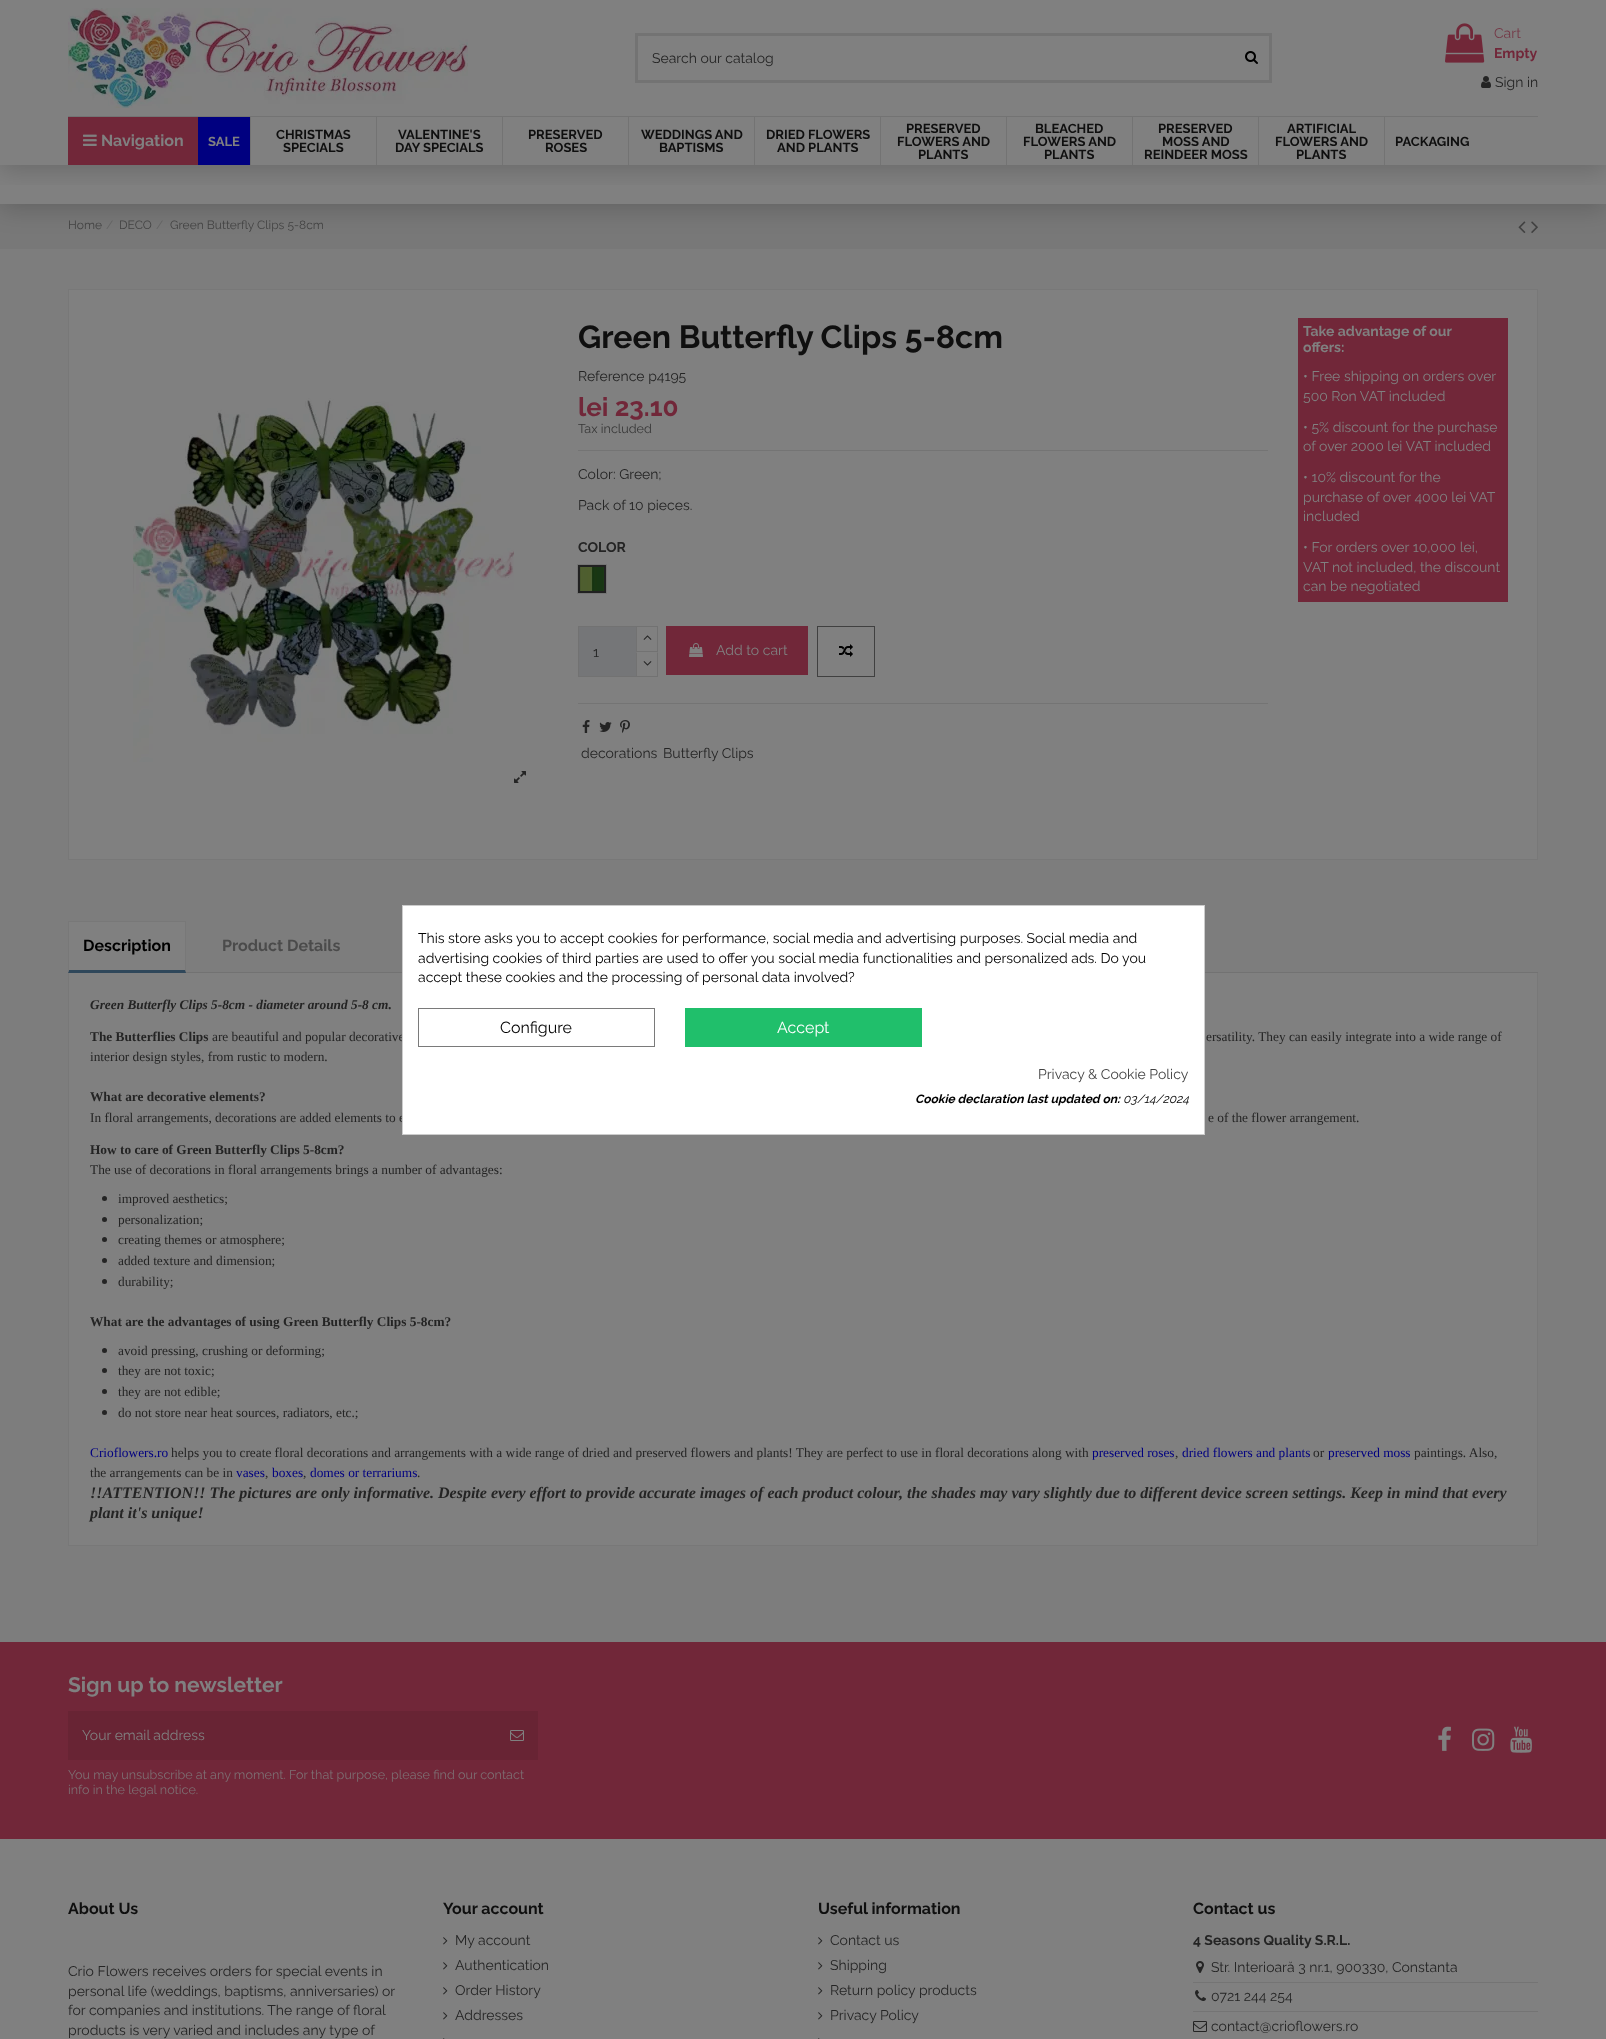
<svg xmlns="http://www.w3.org/2000/svg" xmlns:xlink="http://www.w3.org/1999/xlink" width="1606" height="2039" viewBox="0 0 1606 2039">
<style>
.cls-1{font:14px Raleway;fill:#242424}
.cls-2{font:14px Raleway;fill:#743947}
.cls-3{font:bold 14px Raleway;fill:#712739}
.cls-4{font:bold 16px Raleway;fill:#808080}
.cls-5{font:bold 13px Raleway;fill:#808080}
.cls-6{font:bold 13px Raleway;fill:#0f0f0f}
.cls-7{font:12px Raleway;fill:#434343}
.cls-8{font:12px Raleway;fill:#636363}
.cls-9{font:bold 32px Raleway;fill:#0f0f0f}
.cls-10{font:bold 26px Raleway;fill:#712739}
.cls-11{font:12.6px Raleway;fill:#373737}
.cls-12{font:bold 14px Raleway;fill:#242424}
.cls-13{font:14px Raleway;fill:#808080}
.cls-14{font:bold 14px Raleway;fill:#808080}
.cls-15{font:bold 16px Raleway;fill:#000000}
.cls-16{font:bold 16px Raleway;fill:#4b4b4b}
.cls-17{font:italic bold 13.33px Liberation Serif;fill:#242424}
.cls-18{font:bold 13.33px Liberation Serif;fill:#242424}
.cls-19{font:13.33px Liberation Serif;fill:#242424}
.cls-20{font:13.33px Liberation Serif;fill:#000080}
.cls-21{font:italic bold 16px Liberation Serif;fill:#242424}
.cls-22{font:bold 21px Raleway;fill:#808080}
.cls-23{font:12.6px Raleway;fill:#7d6e72}
.cls-24{font:bold 16px Raleway;fill:#0f0f0f}
.cls-25{font:14px Raleway;fill:#000000}
.cls-26{font:16px Raleway;fill:#000000}
.cls-27{font:16px Raleway;fill:#ffffff}
.cls-28{font:14px Raleway;fill:#434343}
.cls-29{font:italic bold 12px Raleway;fill:#000000}
.cls-30{font:italic 12px Raleway;fill:#000000}
</style>
<defs>
<clipPath id="clip1"><rect x="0" y="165" width="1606" height="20"/></clipPath>
</defs>
<rect width="100%" height="100%" fill="#7d7d7d"/>
<rect fill="#787878" x="0" y="204" width="1606" height="45"/>
<image xlink:href="image5.png" x="1518" y="221" width="8" height="12"/>
<image xlink:href="image6.png" x="1531" y="221" width="7" height="12"/>
<rect fill="#000000" fill-opacity="0.18" filter="blur(12.5px)" x="0" y="-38" width="1606" height="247"/>
<rect fill="#808080" x="0" y="0" width="1606" height="204"/>
<g clip-path="url(#clip1)">
<rect fill="#000000" fill-opacity="0.18" filter="blur(12.5px)" x="0" y="5" width="1606" height="165"/>
</g>
<image xlink:href="image0.png" x="68" y="8" width="400" height="100"/>
<rect fill="none" stroke="#737373" stroke-width="3" x="636.5" y="34.5" width="634" height="47"/>
<image xlink:href="image1.png" x="1245" y="51" width="13" height="13"/>
<image xlink:href="image2.png" x="1445" y="23" width="40" height="40"/>
<image xlink:href="image3.png" x="1481" y="76" width="10" height="12"/>
<rect fill="#737373" x="68" y="116" width="1470" height="1"/>
<rect fill="#712739" x="68" y="117" width="130" height="48"/>
<image xlink:href="image4.png" x="83" y="134" width="14" height="12"/>
<rect fill="#000080" x="198" y="117" width="52" height="48"/>
<rect fill="#737373" x="250" y="117" width="1" height="48"/>
<rect fill="#737373" x="376" y="117" width="1" height="48"/>
<rect fill="#737373" x="502" y="117" width="1" height="48"/>
<rect fill="#737373" x="628" y="117" width="1" height="48"/>
<rect fill="#737373" x="754" y="117" width="1" height="48"/>
<rect fill="#737373" x="880" y="117" width="1" height="48"/>
<rect fill="#737373" x="1006" y="117" width="1" height="48"/>
<rect fill="#737373" x="1132" y="117" width="1" height="48"/>
<rect fill="#737373" x="1258" y="117" width="1" height="48"/>
<rect fill="#737373" x="1384" y="117" width="1" height="48"/>
<rect fill="#808080" stroke="#787878" x="68.5" y="289.5" width="1469" height="570"/>
<image xlink:href="image7.png" x="133" y="398" width="381" height="364"/>
<image xlink:href="image8.png" x="514" y="771" width="12" height="12"/>
<rect fill="#747474" x="578" y="450" width="690" height="1"/>
<image xlink:href="image9.png" x="580" y="567" width="24" height="24"/>
<rect fill="none" stroke="#212121" stroke-width="2" x="579" y="566" width="26" height="26"/>
<rect fill="none" stroke="#747474" x="577.5" y="564.5" width="29" height="29"/>
<rect fill="#757678" stroke="#727272" x="578.5" y="626.5" width="58" height="50"/>
<rect fill="none" stroke="#727272" x="636.5" y="626.5" width="21" height="25"/>
<image xlink:href="image10.png" x="643" y="635" width="9" height="5"/>
<rect fill="#808080" x="636" y="652" width="1" height="24"/>
<path fill="#727272" d="M658 652V677L657 676V653Z"/>
<rect fill="#727272" x="636" y="676" width="22" height="1"/>
<path fill="#727272" d="M636 677V652L637 653V676Z"/>
<image xlink:href="image11.png" x="643" y="661" width="9" height="5"/>
<rect fill="#712739" x="666" y="626" width="142" height="49"/>
<image xlink:href="image12.png" x="689" y="643" width="14" height="14"/>
<rect fill="none" stroke="#404040" x="817.5" y="626.5" width="57" height="50"/>
<image xlink:href="image13.png" x="839" y="644" width="14" height="13"/>
<rect fill="#747474" x="578" y="703" width="690" height="1"/>
<image xlink:href="image14.png" x="582" y="720" width="8" height="13"/>
<image xlink:href="image15.png" x="599" y="722" width="13" height="10"/>
<image xlink:href="image16.png" x="620" y="720" width="10" height="13"/>
<rect fill="#712739" x="1298" y="318" width="210" height="284"/>
<rect fill="#727272" x="68" y="972" width="1470" height="1"/>
<rect fill="#808080" x="69" y="922" width="116" height="48"/>
<rect fill="#787878" x="68" y="921" width="118" height="1"/>
<path fill="#787878" d="M186 921V973L185 970V922Z"/>
<path fill="#2f475a" d="M186 973H68L69 970H185Z"/>
<path fill="#787878" d="M68 973V921L69 922V970Z"/>
<rect fill="#808080" x="69" y="973" width="1468" height="572"/>
<rect fill="#787878" x="1537" y="973" width="1" height="573"/>
<rect fill="#787878" x="68" y="1545" width="1470" height="1"/>
<rect fill="#787878" x="68" y="973" width="1" height="573"/>
<circle fill="#242424" cx="104.5" cy="1198.5" r="2.5"/>
<circle fill="#242424" cx="104.5" cy="1219.5" r="2.5"/>
<circle fill="#242424" cx="104.5" cy="1239.5" r="2.5"/>
<circle fill="#242424" cx="104.5" cy="1260.5" r="2.5"/>
<circle fill="#242424" cx="104.5" cy="1281.5" r="2.5"/>
<circle fill="#242424" cx="104.5" cy="1350.5" r="2.5"/>
<circle fill="#242424" cx="104.5" cy="1370.5" r="2.5"/>
<circle fill="#242424" cx="104.5" cy="1391.5" r="2.5"/>
<circle fill="#242424" cx="104.5" cy="1412.5" r="2.5"/>
<rect fill="#808080" x="0" y="1839" width="1606" height="200"/>
<rect fill="#712739" x="0" y="1642" width="1606" height="197"/>
<rect fill="#682434" x="68" y="1711" width="470" height="49"/>
<image xlink:href="image17.png" x="510" y="1730" width="14" height="11"/>
<image xlink:href="image18.png" x="1438" y="1726" width="13" height="25"/>
<image xlink:href="image19.png" x="1472" y="1728" width="23" height="23"/>
<image xlink:href="image20.png" x="1510" y="1726" width="22" height="27"/>
<image xlink:href="image21.png" x="443" y="1937" width="5" height="8"/>
<image xlink:href="image21.png" x="443" y="1962" width="5" height="8"/>
<image xlink:href="image21.png" x="443" y="1987" width="5" height="8"/>
<image xlink:href="image21.png" x="443" y="2012" width="5" height="8"/>
<image xlink:href="image22.png" x="443" y="2038" width="2" height="1"/>
<image xlink:href="image21.png" x="818" y="1937" width="5" height="8"/>
<image xlink:href="image21.png" x="818" y="1962" width="5" height="8"/>
<image xlink:href="image21.png" x="818" y="1987" width="5" height="8"/>
<image xlink:href="image21.png" x="818" y="2012" width="5" height="8"/>
<image xlink:href="image22.png" x="818" y="2038" width="2" height="1"/>
<image xlink:href="image23.png" x="1196" y="1961" width="8" height="12"/>
<rect fill="#747474" x="1193" y="1982" width="345" height="1"/>
<image xlink:href="image24.png" x="1195" y="1990" width="11" height="11"/>
<rect fill="#747474" x="1193" y="2011" width="345" height="1"/>
<image xlink:href="image25.png" x="1193" y="2021" width="14" height="11"/>
<text class="cls-1" x="652" y="63">Search our catalog</text>
<text class="cls-2" x="1494" y="38">Cart</text>
<text class="cls-3" x="1494" y="58">Empty</text>
<text class="cls-1" x="1495" y="87">Sign in</text>
<text class="cls-4" x="101" y="146">Navigation</text>
<text class="cls-5" x="208" y="146">SALE</text>
<text class="cls-6" x="276" y="139">CHRISTMAS</text>
<text class="cls-6" x="283" y="152">SPECIALS</text>
<text class="cls-6" x="398" y="139">VALENTINE'S</text>
<text class="cls-6" x="395" y="152">DAY SPECIALS</text>
<text class="cls-6" x="528" y="139">PRESERVED</text>
<text class="cls-6" x="545" y="152">ROSES</text>
<text class="cls-6" x="641" y="139">WEDDINGS AND</text>
<text class="cls-6" x="659" y="152">BAPTISMS</text>
<text class="cls-6" x="766" y="139">DRIED FLOWERS</text>
<text class="cls-6" x="777" y="152">AND PLANTS</text>
<text class="cls-6" x="906" y="133">PRESERVED</text>
<text class="cls-6" x="897" y="146">FLOWERS AND</text>
<text class="cls-6" x="918" y="159">PLANTS</text>
<text class="cls-6" x="1035" y="133">BLEACHED</text>
<text class="cls-6" x="1023" y="146">FLOWERS AND</text>
<text class="cls-6" x="1044" y="159">PLANTS</text>
<text class="cls-6" x="1158" y="133">PRESERVED</text>
<text class="cls-6" x="1162" y="146">MOSS AND</text>
<text class="cls-6" x="1144" y="159">REINDEER MOSS</text>
<text class="cls-6" x="1287" y="133">ARTIFICIAL</text>
<text class="cls-6" x="1275" y="146">FLOWERS AND</text>
<text class="cls-6" x="1296" y="159">PLANTS</text>
<text class="cls-6" x="1395" y="146">PACKAGING</text>
<text class="cls-7" x="68" y="229">Home</text>
<text class="cls-8" x="106" y="229">/</text>
<text class="cls-7" x="119" y="229">DECO</text>
<text class="cls-8" x="156" y="229">/</text>
<text class="cls-7" x="170" y="229">Green Butterfly Clips 5-8cm</text>
<text class="cls-9" x="578" y="348">Green Butterfly Clips 5-8cm</text>
<text class="cls-1" x="578" y="381">Reference p4195</text>
<text class="cls-10" x="578" y="416">lei 23.10</text>
<text class="cls-11" x="578" y="433">Tax included</text>
<text class="cls-1" x="578" y="479">Color: Green;</text>
<text class="cls-1" x="578" y="510">Pack of 10 pieces.</text>
<text class="cls-12" x="578" y="552">COLOR</text>
<text class="cls-1" x="593" y="657">1</text>
<text class="cls-13" x="716" y="655">Add to cart</text>
<text class="cls-1" x="581" y="758">decorations</text>
<text class="cls-1" x="663" y="758">Butterfly Clips</text>
<text class="cls-14"><tspan x="1303" y="336">Take advantage of our</tspan><tspan x="1303" y="352">offers:</tspan></text>
<text class="cls-13"><tspan x="1303" y="381">• Free shipping on orders over</tspan><tspan x="1303" y="401">500 Ron VAT included</tspan></text>
<text class="cls-13"><tspan x="1303" y="432">• 5% discount for the purchase</tspan><tspan x="1303" y="451">of over 2000 lei VAT included</tspan></text>
<text class="cls-13"><tspan x="1303" y="482">• 10% discount for the</tspan><tspan x="1303" y="502">purchase of over 4000 lei VAT</tspan><tspan x="1303" y="521">included</tspan></text>
<text class="cls-13"><tspan x="1303" y="552">• For orders over 10,000 lei,</tspan><tspan x="1303" y="572">VAT not included, the discount</tspan><tspan x="1303" y="591">can be negotiated</tspan></text>
<text class="cls-15" x="83" y="951">Description</text>
<text class="cls-16" x="222" y="951">Product Details</text>
<text class="cls-17" x="90" y="1009">Green Butterfly Clips 5-8cm - diameter around 5-8 cm.</text>
<text class="cls-18" x="90" y="1041">The Butterflies Clips</text>
<text class="cls-19" x="212" y="1041">are beautiful and popular decorative</text>
<text class="cls-19" x="1206" y="1041">ersatility. They can easily integrate into a wide range of</text>
<text class="cls-19" x="90" y="1061">interior design styles, from rustic to modern.</text>
<text class="cls-18" x="90" y="1101">What are decorative elements?</text>
<text class="cls-19" x="90" y="1122">In floral arrangements, decorations are added elements to e</text>
<text class="cls-19" x="1208" y="1122">e of the flower arrangement.</text>
<text class="cls-18" x="90" y="1154">How to care of Green Butterfly Clips 5-8cm?</text>
<text class="cls-19" x="90" y="1174">The use of decorations in floral arrangements brings a number of advantages:</text>
<text class="cls-19"><tspan x="118" y="1203">improved aesthetics;</tspan><tspan x="118" y="1224">personalization;</tspan><tspan x="118" y="1244">creating themes or atmosphere;</tspan><tspan x="118" y="1265">added texture and dimension;</tspan><tspan x="118" y="1286">durability;</tspan></text>
<text class="cls-18" x="90" y="1326">What are the advantages of using Green Butterfly Clips 5-8cm?</text>
<text class="cls-19"><tspan x="118" y="1355">avoid pressing, crushing or deforming;</tspan><tspan x="118" y="1375">they are not toxic;</tspan><tspan x="118" y="1396">they are not edible;</tspan><tspan x="118" y="1417">do not store near heat sources, radiators, etc.;</tspan></text>
<text class="cls-20" x="90" y="1457">Crioflowers.ro</text>
<text class="cls-19" x="171" y="1457">helps you to create floral decorations and arrangements with a wide range of dried and preserved flowers and plants! They are perfect to use in floral decorations along with</text>
<text class="cls-20" x="1092" y="1457">preserved roses</text>
<text class="cls-19" x="1175" y="1457">,</text>
<text class="cls-20" x="1182" y="1457">dried flowers and plants</text>
<text class="cls-19" x="1313" y="1457">or</text>
<text class="cls-20" x="1328" y="1457">preserved moss</text>
<text class="cls-19" x="1414" y="1457">paintings. Also,</text>
<text class="cls-19" x="90" y="1477">the arrangements can be in</text>
<text class="cls-20" x="236" y="1477">vases</text>
<text class="cls-19" x="265" y="1477">,</text>
<text class="cls-20" x="272" y="1477">boxes</text>
<text class="cls-19" x="303" y="1477">,</text>
<text class="cls-20" x="310" y="1477">domes or terrariums</text>
<text class="cls-19" x="417" y="1477">.</text>
<text class="cls-21"><tspan x="90" y="1498">!!ATTENTION!! The pictures are only informative. Despite every effort to provide accurate images of each product colour, the shades may vary slightly due to different device screen settings. Keep in mind that every</tspan><tspan x="90" y="1518">plant it's unique!</tspan></text>
<text class="cls-22" x="68" y="1692">Sign up to newsletter</text>
<text class="cls-13" x="82" y="1740">Your email address</text>
<text class="cls-23"><tspan x="68" y="1779">You may unsubscribe at any moment. For that purpose, please find our contact</tspan><tspan x="68" y="1794">info in the legal notice.</tspan></text>
<text class="cls-24" x="68" y="1914">About Us</text>
<text class="cls-1"><tspan x="68" y="1976">Crio Flowers receives orders for special events in</tspan><tspan x="68" y="1996">personal life (weddings, baptisms, anniversaries) or</tspan><tspan x="68" y="2015">for companies and institutions. The range of floral</tspan><tspan x="68" y="2035">products is very varied and includes any type of</tspan></text>
<text class="cls-24" x="443" y="1914">Your account</text>
<text class="cls-1"><tspan x="455" y="1945">My account</tspan><tspan x="455" y="1970">Authentication</tspan><tspan x="455" y="1995">Order History</tspan><tspan x="455" y="2020">Addresses</tspan></text>
<text class="cls-24" x="818" y="1914">Useful information</text>
<text class="cls-1"><tspan x="830" y="1945">Contact us</tspan><tspan x="830" y="1970">Shipping</tspan><tspan x="830" y="1995">Return policy products</tspan><tspan x="830" y="2020">Privacy Policy</tspan></text>
<text class="cls-24" x="1193" y="1914">Contact us</text>
<text class="cls-12" x="1193" y="1945">4 Seasons Quality S.R.L.</text>
<text class="cls-1" x="1211" y="1972">Str. Interioară 3 nr.1, 900330, Constanta</text>
<text class="cls-1" x="1211" y="2001">0721 244 254</text>
<text class="cls-1" x="1211" y="2031">contact@crioflowers.ro</text>
<rect fill="#ffffff" stroke="#cccccc" x="402.5" y="905.5" width="802" height="229"/>
<text class="cls-25"><tspan x="418" y="943">This store asks you to accept cookies for performance, social media and advertising purposes. Social media and</tspan><tspan x="418" y="963">advertising cookies of third parties are used to offer you social media functionalities and personalized ads. Do you</tspan><tspan x="418" y="982">accept these cookies and the processing of personal data involved?</tspan></text>
<rect fill="none" stroke="#7a7a7a" x="418.5" y="1008.5" width="236" height="38"/>
<text class="cls-26" x="500" y="1033">Configure</text>
<rect fill="#20bf6b" x="685" y="1008" width="237" height="39"/>
<text class="cls-27" x="777" y="1033">Accept</text>
<text class="cls-28" x="1038" y="1079">Privacy &amp; Cookie Policy</text>
<text class="cls-29" x="915" y="1103">Cookie declaration last updated on:</text>
<text class="cls-30" x="1123" y="1103">03/14/2024</text>
</svg>
